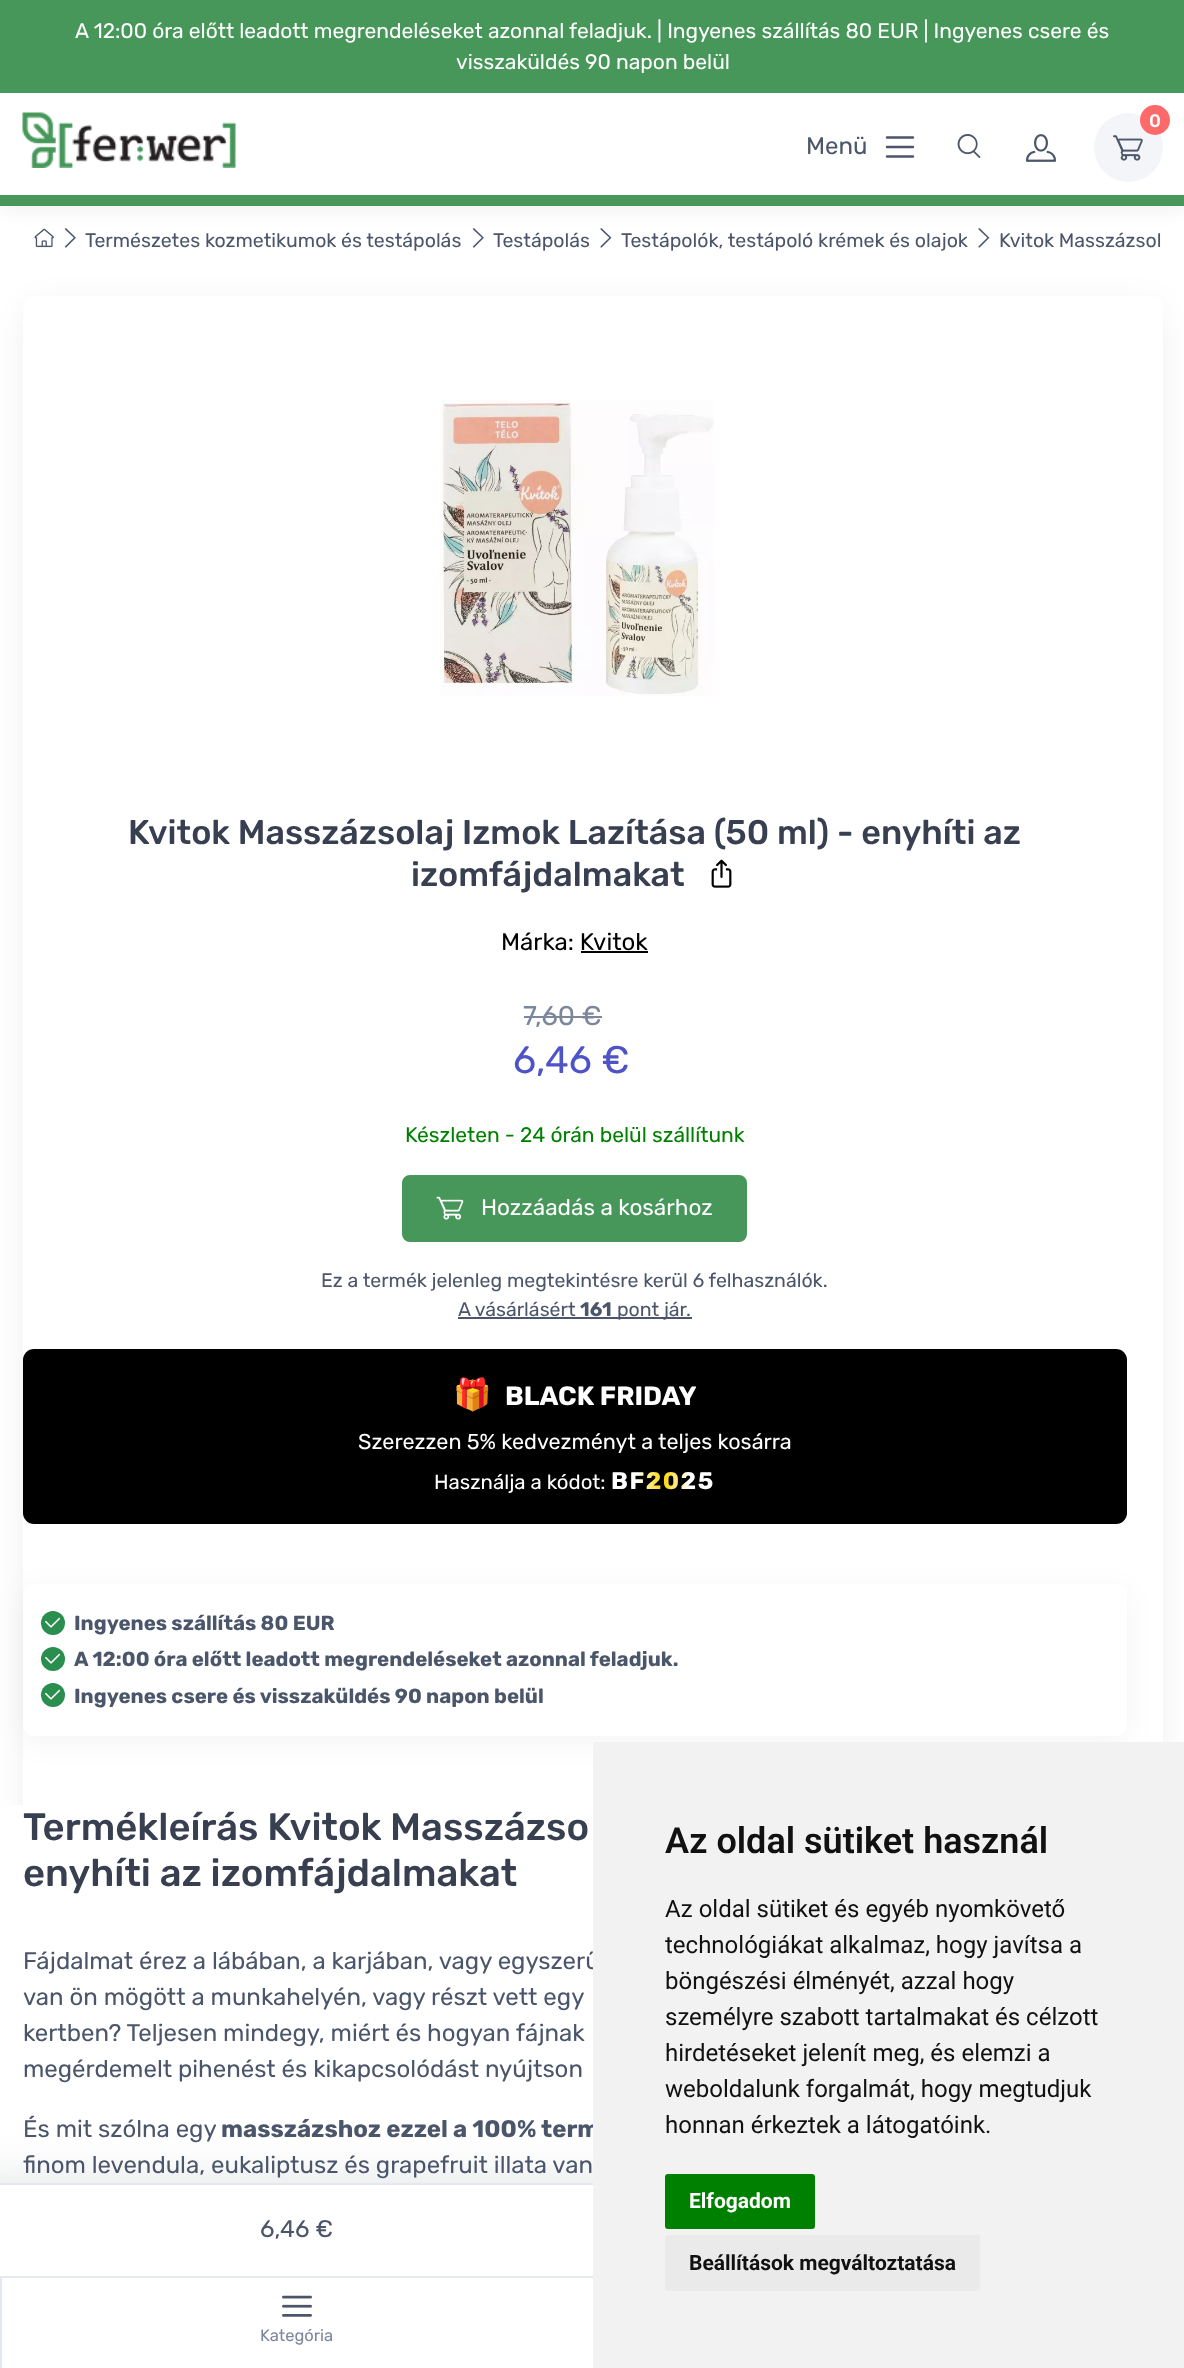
<svg xmlns="http://www.w3.org/2000/svg" xmlns:xlink="http://www.w3.org/1999/xlink" width="1184" height="2368" viewBox="0 0 1184 2368">
<style>
.cls-1{font:21px Rubik;fill:#ffffff}
.cls-2{font:500 18px Rubik;fill:#ffffff}
.cls-3{font:24px Rubik;fill:#4b566b}
.cls-4{font:19.5px Rubik;fill:#4b566b}
.cls-5{font:500 34.15px Rubik;fill:#373f50}
.cls-6{font:24px Rubik;fill:#000000}
.cls-7{font:27px Rubik;fill:#7d879c}
.cls-8{font:38.25px Rubik;fill:#4e54c8}
.cls-9{font:21px Rubik;fill:#008000}
.cls-10{font:22.5px Rubik;fill:#ffffff}
.cls-11{font:bold 19.5px Rubik;fill:#4b566b}
.cls-12{font:bold 31px Noto Color Emoji;fill:#ffffff}
.cls-13{font:bold 26.5px Rubik;fill:#ffffff}
.cls-14{font:21.6px Rubik;fill:#ffffff}
.cls-15{font:20.4px Rubik;fill:#ffffff}
.cls-16{font:bold 24px Rubik;letter-spacing:1.5px;fill:url(#g1)}
.cls-17{font:bold 20.4px Rubik;fill:#4b566b}
.cls-18{font:500 38.25px Rubik;fill:#373f50}
.cls-19{font:bold 24px Rubik;fill:#4b566b}
.cls-20{font:16.5px Rubik;fill:#7d879c}
.cls-21{font:600 36px Roboto;fill:#111111}
.cls-22{font:24px Roboto;fill:#111111}
.cls-23{font:bold 21px Roboto;fill:#ffffff}
.cls-24{font:bold 21px Roboto;fill:#111111}
</style>
<defs>
<linearGradient id="g1" gradientUnits="userSpaceOnUse" x1="611" y1="1481" x2="715" y2="1481"><stop offset="0.25" stop-color="#ffffff"/><stop offset="0.5" stop-color="#ffd700"/><stop offset="0.75" stop-color="#ffffff"/></linearGradient>
</defs>
<rect width="100%" height="100%" fill="#ffffff"/>
<rect fill="#000000" fill-opacity="0.06" filter="blur(9px)" x="2" y="8" width="1182" height="202"/>
<rect fill="#469759" x="0" y="0" width="1184" height="93"/>
<rect fill="#ffffff" x="0" y="93" width="1184" height="102"/>
<image xlink:href="image0.png" x="22" y="112" width="214" height="56"/>
<circle fill="#f3f5f9" cx="1128.5" cy="147.5" r="34.5"/>
<circle fill="#fe696a" cx="1155" cy="120" r="15"/>
<image xlink:href="image1.png" x="1113" y="135" width="30" height="26"/>
<path fill="none" stroke="#4b566b" stroke-width="2.4" stroke-linecap="round" d="M887 137.5H913M887 147H913M887 156.5H913"/>
<image xlink:href="image2.png" x="957" y="134" width="24" height="24"/>
<image xlink:href="image3.png" x="1026" y="134" width="30" height="28"/>
<rect fill="#469759" x="0" y="195" width="1184" height="11"/>
<image xlink:href="image4.png" x="34" y="228" width="20" height="20"/>
<image xlink:href="image5.png" x="64" y="228" width="12" height="20"/>
<image xlink:href="image5.png" x="472" y="228" width="12" height="20"/>
<image xlink:href="image6.png" x="600" y="228" width="12" height="20"/>
<image xlink:href="image6.png" x="978" y="228" width="12" height="20"/>
<rect fill="#000000" fill-opacity="0.1" filter="blur(18.5px)" x="32" y="312" width="1122" height="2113" rx="1.5"/>
<rect fill="#ffffff" x="23" y="296" width="1140" height="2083" rx="11"/>
<image xlink:href="image7.png" x="440" y="400" width="274" height="296"/>
<image xlink:href="image8.png" x="711" y="859" width="21" height="29"/>
<rect fill="#000000" x="581" y="951" width="67" height="2"/>
<rect fill="#7d879c" x="524" y="1016" width="78" height="2"/>
<rect fill="#469759" stroke="#469759" stroke-width="2" x="403" y="1176" width="343" height="65" rx="7"/>
<image xlink:href="image9.png" x="436" y="1196" width="28" height="24"/>
<rect fill="#4b566b" x="458" y="1317" width="234" height="2"/>
<rect fill="#000000" x="23" y="1349" width="1104" height="175" rx="11"/>
<rect fill="#000000" fill-opacity="0.05" filter="blur(15px)" x="24" y="1592" width="1101" height="148" rx="9"/>
<rect fill="#ffffff" x="23" y="1584" width="1104" height="152" rx="11"/>
<circle fill="#2a8f4e" cx="53" cy="1623" r="12"/>
<image xlink:href="image10.png" x="45" y="1617" width="15" height="11"/>
<circle fill="#2a8f4e" cx="53" cy="1659" r="12"/>
<image xlink:href="image10.png" x="45" y="1653" width="15" height="11"/>
<circle fill="#2a8f4e" cx="53" cy="1695" r="12"/>
<image xlink:href="image10.png" x="45" y="1689" width="15" height="11"/>
<rect fill="#ffffff" x="0" y="1805" width="1149" height="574" rx="11"/>
<rect fill="#2b3445" fill-opacity="0.15" filter="blur(24px)" x="-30" y="2183" width="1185" height="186"/>
<rect fill="#ffffff" x="0" y="2185" width="593" height="183"/>
<rect fill="#e3e9ef" x="0" y="2183" width="593" height="2"/>
<rect fill="#e3e9ef" x="0" y="2276" width="593" height="2"/>
<rect fill="#e3e9ef" x="0" y="2277" width="2" height="91"/>
<image xlink:href="image11.png" x="282" y="2295" width="30" height="22"/>
<text class="cls-1" x="75" y="38">A 12:00 óra előtt leadott megrendeléseket azonnal feladjuk. | Ingyenes szállítás 80 EUR | Ingyenes csere és</text>
<text class="cls-1" x="456" y="69">visszaküldés 90 napon belül</text>
<text class="cls-2" x="1149" y="127">0</text>
<text class="cls-3" x="806" y="154">Menü</text>
<text class="cls-4" x="85" y="247">Természetes kozmetikumok és testápolás</text>
<text class="cls-4" x="493" y="247">Testápolás</text>
<text class="cls-4" x="621" y="247">Testápolók, testápoló krémek és olajok</text>
<text class="cls-4" x="999" y="247">Kvitok Masszázsol</text>
<text class="cls-5" x="128" y="844">Kvitok Masszázsolaj Izmok Lazítása (50 ml) - enyhíti az</text>
<text class="cls-5" x="411" y="886">izomfájdalmakat</text>
<text class="cls-6" x="501" y="950">Márka: Kvitok</text>
<text class="cls-7" x="523" y="1025">7,60 €</text>
<text class="cls-8" x="513" y="1073">6,46 €</text>
<text class="cls-9" x="405" y="1142">Készleten - 24 órán belül szállítunk</text>
<text class="cls-10" x="481" y="1215">Hozzáadás a kosárhoz</text>
<text class="cls-4" x="321" y="1287">Ez a termék jelenleg megtekintésre kerül 6 felhasználók.</text>
<text class="cls-4" x="458" y="1316">A vásárlásért</text>
<text class="cls-11" x="580" y="1316">161</text>
<text class="cls-4" x="617" y="1316">pont jár.</text>
<text class="cls-12" x="453" y="1405">🎁</text>
<text class="cls-13" x="505" y="1405">BLACK FRIDAY</text>
<text class="cls-14" x="358" y="1449">Szerezzen 5% kedvezményt a teljes kosárra</text>
<text class="cls-15" x="434" y="1489">Használja a kódot:</text>
<text class="cls-16" x="611" y="1489">BF2025</text>
<text class="cls-17"><tspan x="74" y="1630">Ingyenes szállítás 80 EUR</tspan><tspan x="74" y="1666">A 12:00 óra előtt leadott megrendeléseket azonnal feladjuk.</tspan><tspan x="74" y="1703">Ingyenes csere és visszaküldés 90 napon belül</tspan></text>
<text class="cls-18"><tspan x="23" y="1840">Termékleírás Kvitok Masszázso</tspan><tspan x="23" y="1886">enyhíti az izomfájdalmakat</tspan></text>
<text class="cls-3"><tspan x="23" y="1969">Fájdalmat érez a lábában, a karjában, vagy egyszerű</tspan><tspan x="23" y="2005">van ön mögött a munkahelyén, vagy részt vett egy</tspan><tspan x="23" y="2041">kertben? Teljesen mindegy, miért és hogyan fájnak</tspan><tspan x="23" y="2077">megérdemelt pihenést és kikapcsolódást nyújtson</tspan></text>
<text class="cls-3" x="23" y="2137">És mit szólna egy</text>
<text class="cls-19" x="221" y="2137">masszázshoz ezzel a 100% term</text>
<text class="cls-3" x="23" y="2173">finom levendula, eukaliptusz és grapefruit illata van</text>
<text class="cls-3" x="260" y="2237">6,46 €</text>
<text class="cls-20" x="260" y="2341">Kategória</text>
<rect fill="#f2f2f2" x="593" y="1742" width="591" height="626"/>
<text class="cls-21" x="665" y="1853">Az oldal sütiket használ</text>
<text class="cls-22"><tspan x="665" y="1917">Az oldal sütiket és egyéb nyomkövető</tspan><tspan x="665" y="1953">technológiákat alkalmaz, hogy javítsa a</tspan><tspan x="665" y="1989">böngészési élményét, azzal hogy</tspan><tspan x="665" y="2025">személyre szabott tartalmakat és célzott</tspan><tspan x="665" y="2061">hirdetéseket jelenít meg, és elemzi a</tspan><tspan x="665" y="2097">weboldalunk forgalmát, hogy megtudjuk</tspan><tspan x="665" y="2133">honnan érkeztek a látogatóink.</tspan></text>
<rect fill="#008000" x="665" y="2174" width="150" height="55" rx="3"/>
<text class="cls-23" x="689" y="2208">Elfogadom</text>
<rect fill="#eaeaea" x="665" y="2235" width="315" height="56" rx="3"/>
<text class="cls-24" x="689" y="2270">Beállítások megváltoztatása</text>
</svg>
